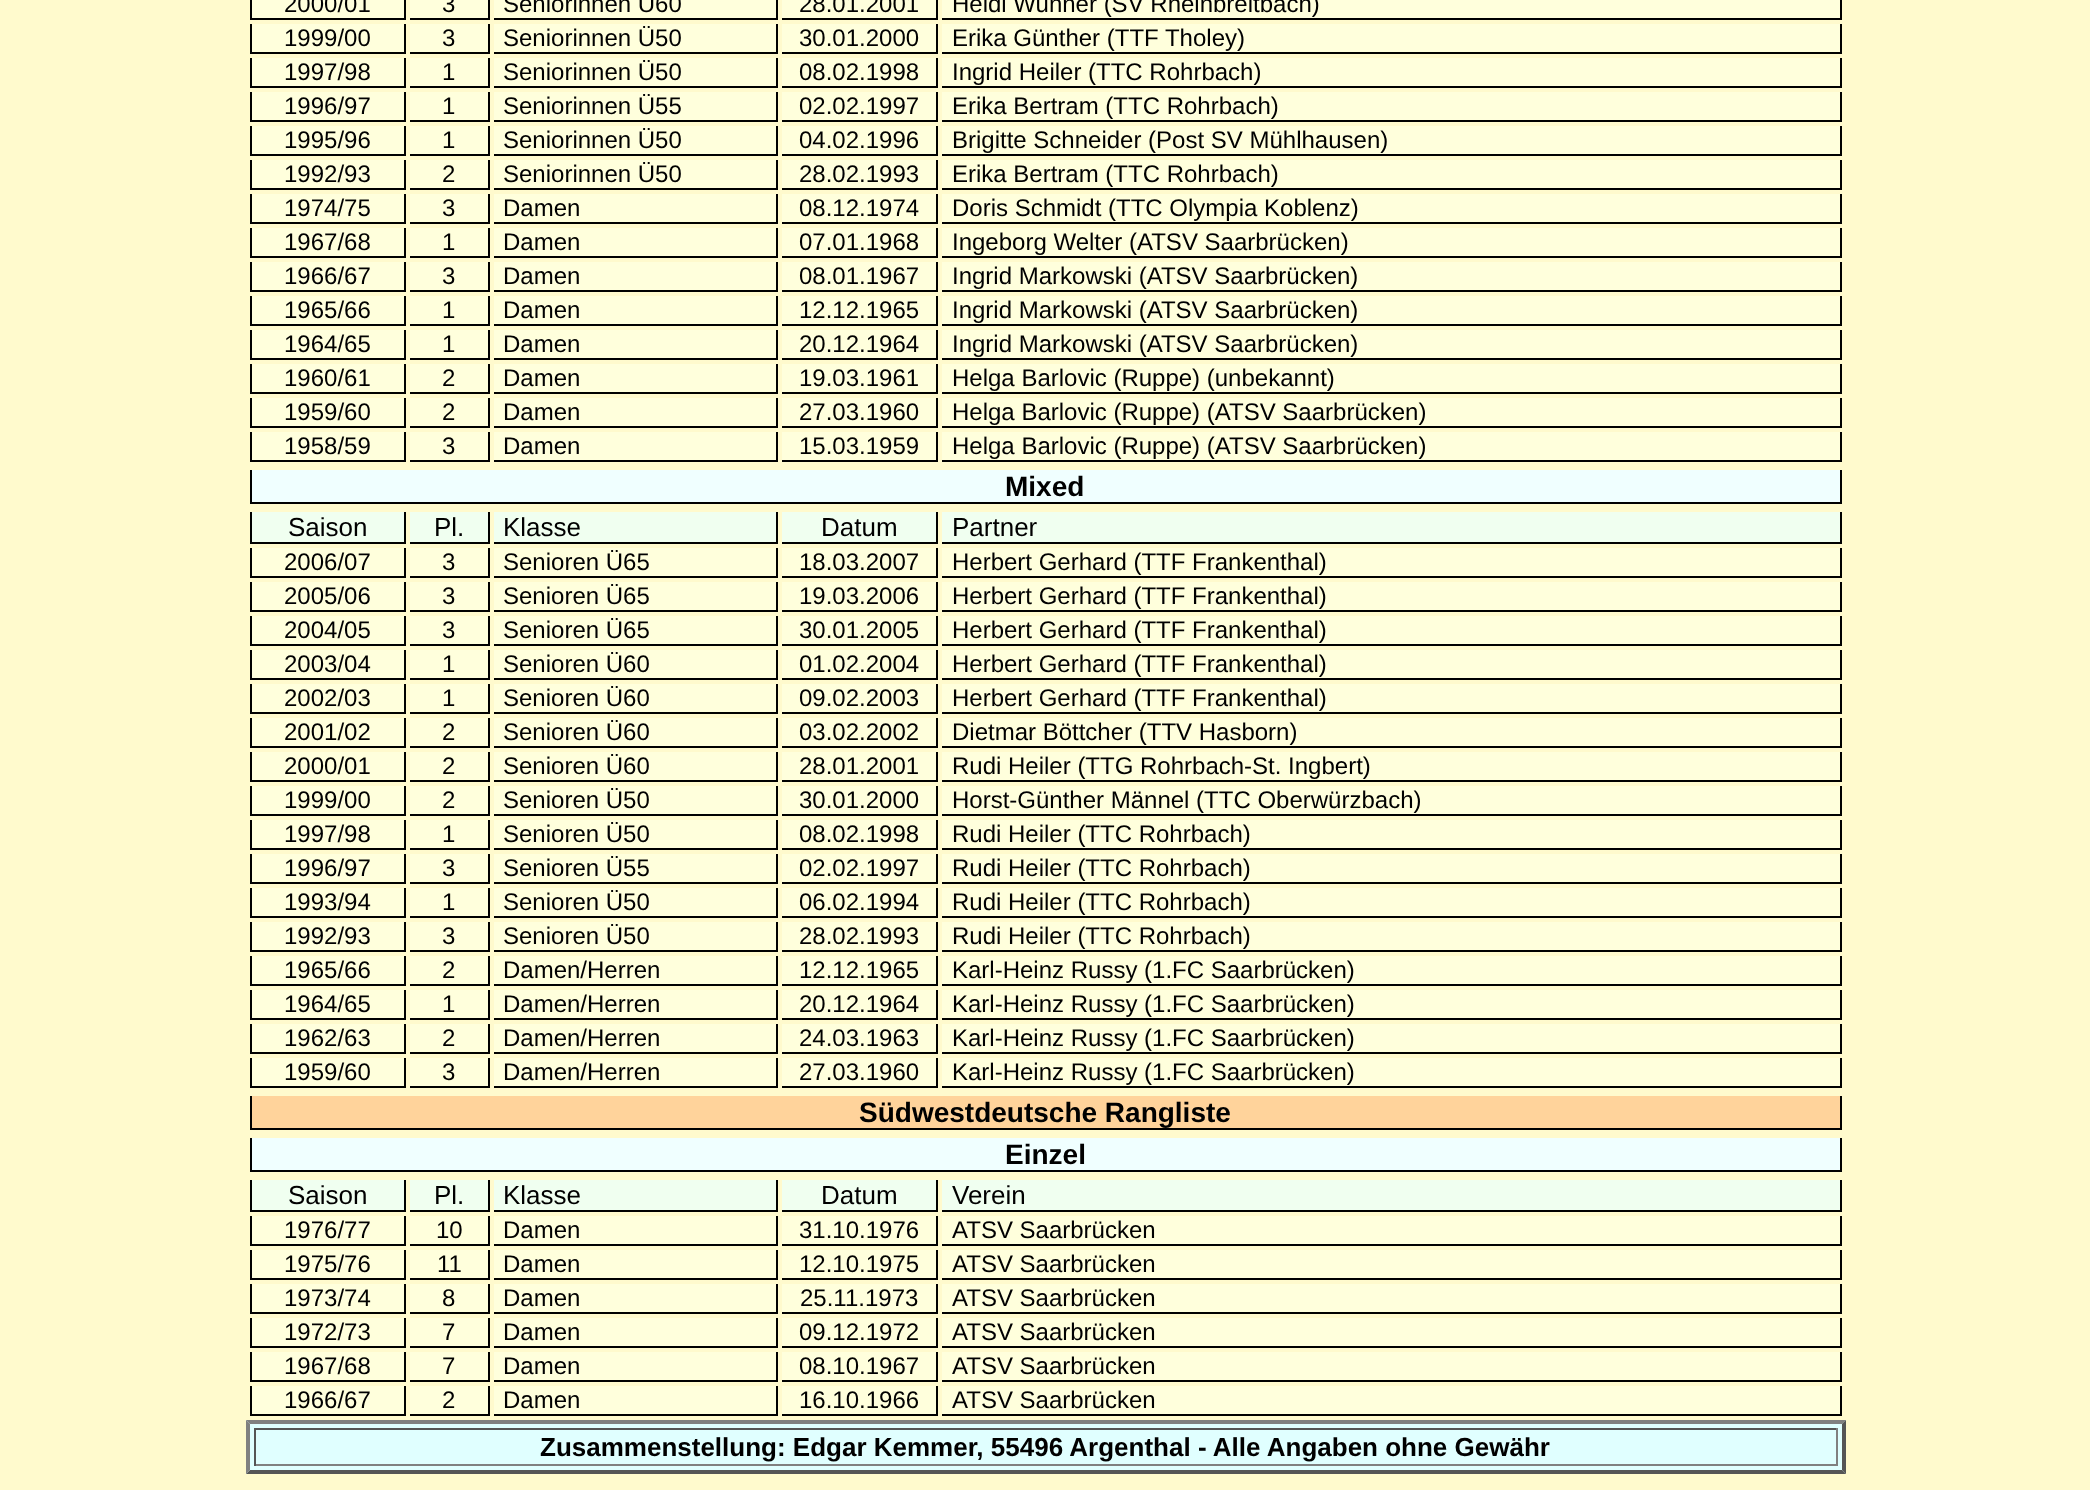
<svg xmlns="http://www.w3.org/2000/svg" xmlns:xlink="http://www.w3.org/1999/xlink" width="2090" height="1490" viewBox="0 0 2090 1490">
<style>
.cls-1{font:24px Liberation Sans;fill:#000000}
.cls-2{font:bold 28px Liberation Sans;fill:#000000}
.cls-3{font:26px Liberation Sans;fill:#000000}
.cls-4{font:bold 26px Liberation Sans;fill:#000000}
</style>
<rect width="100%" height="100%" fill="#fffacd"/>
<rect fill="#ffffdc" x="252" y="0" width="152" height="18"/>
<rect fill="#000000" x="404" y="0" width="2" height="20"/>
<rect fill="#000000" x="250" y="18" width="156" height="2"/>
<rect fill="#000000" x="250" y="0" width="2" height="20"/>
<rect fill="#ffffdc" x="410" y="0" width="78" height="18"/>
<rect fill="#000000" x="488" y="0" width="2" height="20"/>
<rect fill="#000000" x="410" y="18" width="80" height="2"/>
<rect fill="#ffffdc" x="494" y="0" width="282" height="18"/>
<rect fill="#000000" x="776" y="0" width="2" height="20"/>
<rect fill="#000000" x="494" y="18" width="284" height="2"/>
<rect fill="#ffffdc" x="782" y="0" width="154" height="18"/>
<rect fill="#000000" x="936" y="0" width="2" height="20"/>
<rect fill="#000000" x="782" y="18" width="156" height="2"/>
<rect fill="#ffffdc" x="942" y="0" width="898" height="18"/>
<rect fill="#000000" x="1840" y="0" width="2" height="20"/>
<rect fill="#000000" x="942" y="18" width="900" height="2"/>
<rect fill="#ffffdc" x="252" y="24" width="152" height="28"/>
<rect fill="#000000" x="404" y="24" width="2" height="30"/>
<rect fill="#000000" x="250" y="52" width="156" height="2"/>
<rect fill="#000000" x="250" y="24" width="2" height="30"/>
<rect fill="#ffffdc" x="410" y="24" width="78" height="28"/>
<rect fill="#000000" x="488" y="24" width="2" height="30"/>
<rect fill="#000000" x="410" y="52" width="80" height="2"/>
<rect fill="#ffffdc" x="494" y="24" width="282" height="28"/>
<rect fill="#000000" x="776" y="24" width="2" height="30"/>
<rect fill="#000000" x="494" y="52" width="284" height="2"/>
<rect fill="#ffffdc" x="782" y="24" width="154" height="28"/>
<rect fill="#000000" x="936" y="24" width="2" height="30"/>
<rect fill="#000000" x="782" y="52" width="156" height="2"/>
<rect fill="#ffffdc" x="942" y="24" width="898" height="28"/>
<rect fill="#000000" x="1840" y="24" width="2" height="30"/>
<rect fill="#000000" x="942" y="52" width="900" height="2"/>
<rect fill="#ffffdc" x="252" y="58" width="152" height="28"/>
<rect fill="#000000" x="404" y="58" width="2" height="30"/>
<rect fill="#000000" x="250" y="86" width="156" height="2"/>
<rect fill="#000000" x="250" y="58" width="2" height="30"/>
<rect fill="#ffffdc" x="410" y="58" width="78" height="28"/>
<rect fill="#000000" x="488" y="58" width="2" height="30"/>
<rect fill="#000000" x="410" y="86" width="80" height="2"/>
<rect fill="#ffffdc" x="494" y="58" width="282" height="28"/>
<rect fill="#000000" x="776" y="58" width="2" height="30"/>
<rect fill="#000000" x="494" y="86" width="284" height="2"/>
<rect fill="#ffffdc" x="782" y="58" width="154" height="28"/>
<rect fill="#000000" x="936" y="58" width="2" height="30"/>
<rect fill="#000000" x="782" y="86" width="156" height="2"/>
<rect fill="#ffffdc" x="942" y="58" width="898" height="28"/>
<rect fill="#000000" x="1840" y="58" width="2" height="30"/>
<rect fill="#000000" x="942" y="86" width="900" height="2"/>
<rect fill="#ffffdc" x="252" y="92" width="152" height="28"/>
<rect fill="#000000" x="404" y="92" width="2" height="30"/>
<rect fill="#000000" x="250" y="120" width="156" height="2"/>
<rect fill="#000000" x="250" y="92" width="2" height="30"/>
<rect fill="#ffffdc" x="410" y="92" width="78" height="28"/>
<rect fill="#000000" x="488" y="92" width="2" height="30"/>
<rect fill="#000000" x="410" y="120" width="80" height="2"/>
<rect fill="#ffffdc" x="494" y="92" width="282" height="28"/>
<rect fill="#000000" x="776" y="92" width="2" height="30"/>
<rect fill="#000000" x="494" y="120" width="284" height="2"/>
<rect fill="#ffffdc" x="782" y="92" width="154" height="28"/>
<rect fill="#000000" x="936" y="92" width="2" height="30"/>
<rect fill="#000000" x="782" y="120" width="156" height="2"/>
<rect fill="#ffffdc" x="942" y="92" width="898" height="28"/>
<rect fill="#000000" x="1840" y="92" width="2" height="30"/>
<rect fill="#000000" x="942" y="120" width="900" height="2"/>
<rect fill="#ffffdc" x="252" y="126" width="152" height="28"/>
<rect fill="#000000" x="404" y="126" width="2" height="30"/>
<rect fill="#000000" x="250" y="154" width="156" height="2"/>
<rect fill="#000000" x="250" y="126" width="2" height="30"/>
<rect fill="#ffffdc" x="410" y="126" width="78" height="28"/>
<rect fill="#000000" x="488" y="126" width="2" height="30"/>
<rect fill="#000000" x="410" y="154" width="80" height="2"/>
<rect fill="#ffffdc" x="494" y="126" width="282" height="28"/>
<rect fill="#000000" x="776" y="126" width="2" height="30"/>
<rect fill="#000000" x="494" y="154" width="284" height="2"/>
<rect fill="#ffffdc" x="782" y="126" width="154" height="28"/>
<rect fill="#000000" x="936" y="126" width="2" height="30"/>
<rect fill="#000000" x="782" y="154" width="156" height="2"/>
<rect fill="#ffffdc" x="942" y="126" width="898" height="28"/>
<rect fill="#000000" x="1840" y="126" width="2" height="30"/>
<rect fill="#000000" x="942" y="154" width="900" height="2"/>
<rect fill="#ffffdc" x="252" y="160" width="152" height="28"/>
<rect fill="#000000" x="404" y="160" width="2" height="30"/>
<rect fill="#000000" x="250" y="188" width="156" height="2"/>
<rect fill="#000000" x="250" y="160" width="2" height="30"/>
<rect fill="#ffffdc" x="410" y="160" width="78" height="28"/>
<rect fill="#000000" x="488" y="160" width="2" height="30"/>
<rect fill="#000000" x="410" y="188" width="80" height="2"/>
<rect fill="#ffffdc" x="494" y="160" width="282" height="28"/>
<rect fill="#000000" x="776" y="160" width="2" height="30"/>
<rect fill="#000000" x="494" y="188" width="284" height="2"/>
<rect fill="#ffffdc" x="782" y="160" width="154" height="28"/>
<rect fill="#000000" x="936" y="160" width="2" height="30"/>
<rect fill="#000000" x="782" y="188" width="156" height="2"/>
<rect fill="#ffffdc" x="942" y="160" width="898" height="28"/>
<rect fill="#000000" x="1840" y="160" width="2" height="30"/>
<rect fill="#000000" x="942" y="188" width="900" height="2"/>
<rect fill="#ffffdc" x="252" y="194" width="152" height="28"/>
<rect fill="#000000" x="404" y="194" width="2" height="30"/>
<rect fill="#000000" x="250" y="222" width="156" height="2"/>
<rect fill="#000000" x="250" y="194" width="2" height="30"/>
<rect fill="#ffffdc" x="410" y="194" width="78" height="28"/>
<rect fill="#000000" x="488" y="194" width="2" height="30"/>
<rect fill="#000000" x="410" y="222" width="80" height="2"/>
<rect fill="#ffffdc" x="494" y="194" width="282" height="28"/>
<rect fill="#000000" x="776" y="194" width="2" height="30"/>
<rect fill="#000000" x="494" y="222" width="284" height="2"/>
<rect fill="#ffffdc" x="782" y="194" width="154" height="28"/>
<rect fill="#000000" x="936" y="194" width="2" height="30"/>
<rect fill="#000000" x="782" y="222" width="156" height="2"/>
<rect fill="#ffffdc" x="942" y="194" width="898" height="28"/>
<rect fill="#000000" x="1840" y="194" width="2" height="30"/>
<rect fill="#000000" x="942" y="222" width="900" height="2"/>
<rect fill="#ffffdc" x="252" y="228" width="152" height="28"/>
<rect fill="#000000" x="404" y="228" width="2" height="30"/>
<rect fill="#000000" x="250" y="256" width="156" height="2"/>
<rect fill="#000000" x="250" y="228" width="2" height="30"/>
<rect fill="#ffffdc" x="410" y="228" width="78" height="28"/>
<rect fill="#000000" x="488" y="228" width="2" height="30"/>
<rect fill="#000000" x="410" y="256" width="80" height="2"/>
<rect fill="#ffffdc" x="494" y="228" width="282" height="28"/>
<rect fill="#000000" x="776" y="228" width="2" height="30"/>
<rect fill="#000000" x="494" y="256" width="284" height="2"/>
<rect fill="#ffffdc" x="782" y="228" width="154" height="28"/>
<rect fill="#000000" x="936" y="228" width="2" height="30"/>
<rect fill="#000000" x="782" y="256" width="156" height="2"/>
<rect fill="#ffffdc" x="942" y="228" width="898" height="28"/>
<rect fill="#000000" x="1840" y="228" width="2" height="30"/>
<rect fill="#000000" x="942" y="256" width="900" height="2"/>
<rect fill="#ffffdc" x="252" y="262" width="152" height="28"/>
<rect fill="#000000" x="404" y="262" width="2" height="30"/>
<rect fill="#000000" x="250" y="290" width="156" height="2"/>
<rect fill="#000000" x="250" y="262" width="2" height="30"/>
<rect fill="#ffffdc" x="410" y="262" width="78" height="28"/>
<rect fill="#000000" x="488" y="262" width="2" height="30"/>
<rect fill="#000000" x="410" y="290" width="80" height="2"/>
<rect fill="#ffffdc" x="494" y="262" width="282" height="28"/>
<rect fill="#000000" x="776" y="262" width="2" height="30"/>
<rect fill="#000000" x="494" y="290" width="284" height="2"/>
<rect fill="#ffffdc" x="782" y="262" width="154" height="28"/>
<rect fill="#000000" x="936" y="262" width="2" height="30"/>
<rect fill="#000000" x="782" y="290" width="156" height="2"/>
<rect fill="#ffffdc" x="942" y="262" width="898" height="28"/>
<rect fill="#000000" x="1840" y="262" width="2" height="30"/>
<rect fill="#000000" x="942" y="290" width="900" height="2"/>
<rect fill="#ffffdc" x="252" y="296" width="152" height="28"/>
<rect fill="#000000" x="404" y="296" width="2" height="30"/>
<rect fill="#000000" x="250" y="324" width="156" height="2"/>
<rect fill="#000000" x="250" y="296" width="2" height="30"/>
<rect fill="#ffffdc" x="410" y="296" width="78" height="28"/>
<rect fill="#000000" x="488" y="296" width="2" height="30"/>
<rect fill="#000000" x="410" y="324" width="80" height="2"/>
<rect fill="#ffffdc" x="494" y="296" width="282" height="28"/>
<rect fill="#000000" x="776" y="296" width="2" height="30"/>
<rect fill="#000000" x="494" y="324" width="284" height="2"/>
<rect fill="#ffffdc" x="782" y="296" width="154" height="28"/>
<rect fill="#000000" x="936" y="296" width="2" height="30"/>
<rect fill="#000000" x="782" y="324" width="156" height="2"/>
<rect fill="#ffffdc" x="942" y="296" width="898" height="28"/>
<rect fill="#000000" x="1840" y="296" width="2" height="30"/>
<rect fill="#000000" x="942" y="324" width="900" height="2"/>
<rect fill="#ffffdc" x="252" y="330" width="152" height="28"/>
<rect fill="#000000" x="404" y="330" width="2" height="30"/>
<rect fill="#000000" x="250" y="358" width="156" height="2"/>
<rect fill="#000000" x="250" y="330" width="2" height="30"/>
<rect fill="#ffffdc" x="410" y="330" width="78" height="28"/>
<rect fill="#000000" x="488" y="330" width="2" height="30"/>
<rect fill="#000000" x="410" y="358" width="80" height="2"/>
<rect fill="#ffffdc" x="494" y="330" width="282" height="28"/>
<rect fill="#000000" x="776" y="330" width="2" height="30"/>
<rect fill="#000000" x="494" y="358" width="284" height="2"/>
<rect fill="#ffffdc" x="782" y="330" width="154" height="28"/>
<rect fill="#000000" x="936" y="330" width="2" height="30"/>
<rect fill="#000000" x="782" y="358" width="156" height="2"/>
<rect fill="#ffffdc" x="942" y="330" width="898" height="28"/>
<rect fill="#000000" x="1840" y="330" width="2" height="30"/>
<rect fill="#000000" x="942" y="358" width="900" height="2"/>
<rect fill="#ffffdc" x="252" y="364" width="152" height="28"/>
<rect fill="#000000" x="404" y="364" width="2" height="30"/>
<rect fill="#000000" x="250" y="392" width="156" height="2"/>
<rect fill="#000000" x="250" y="364" width="2" height="30"/>
<rect fill="#ffffdc" x="410" y="364" width="78" height="28"/>
<rect fill="#000000" x="488" y="364" width="2" height="30"/>
<rect fill="#000000" x="410" y="392" width="80" height="2"/>
<rect fill="#ffffdc" x="494" y="364" width="282" height="28"/>
<rect fill="#000000" x="776" y="364" width="2" height="30"/>
<rect fill="#000000" x="494" y="392" width="284" height="2"/>
<rect fill="#ffffdc" x="782" y="364" width="154" height="28"/>
<rect fill="#000000" x="936" y="364" width="2" height="30"/>
<rect fill="#000000" x="782" y="392" width="156" height="2"/>
<rect fill="#ffffdc" x="942" y="364" width="898" height="28"/>
<rect fill="#000000" x="1840" y="364" width="2" height="30"/>
<rect fill="#000000" x="942" y="392" width="900" height="2"/>
<rect fill="#ffffdc" x="252" y="398" width="152" height="28"/>
<rect fill="#000000" x="404" y="398" width="2" height="30"/>
<rect fill="#000000" x="250" y="426" width="156" height="2"/>
<rect fill="#000000" x="250" y="398" width="2" height="30"/>
<rect fill="#ffffdc" x="410" y="398" width="78" height="28"/>
<rect fill="#000000" x="488" y="398" width="2" height="30"/>
<rect fill="#000000" x="410" y="426" width="80" height="2"/>
<rect fill="#ffffdc" x="494" y="398" width="282" height="28"/>
<rect fill="#000000" x="776" y="398" width="2" height="30"/>
<rect fill="#000000" x="494" y="426" width="284" height="2"/>
<rect fill="#ffffdc" x="782" y="398" width="154" height="28"/>
<rect fill="#000000" x="936" y="398" width="2" height="30"/>
<rect fill="#000000" x="782" y="426" width="156" height="2"/>
<rect fill="#ffffdc" x="942" y="398" width="898" height="28"/>
<rect fill="#000000" x="1840" y="398" width="2" height="30"/>
<rect fill="#000000" x="942" y="426" width="900" height="2"/>
<rect fill="#ffffdc" x="252" y="432" width="152" height="28"/>
<rect fill="#000000" x="404" y="432" width="2" height="30"/>
<rect fill="#000000" x="250" y="460" width="156" height="2"/>
<rect fill="#000000" x="250" y="432" width="2" height="30"/>
<rect fill="#ffffdc" x="410" y="432" width="78" height="28"/>
<rect fill="#000000" x="488" y="432" width="2" height="30"/>
<rect fill="#000000" x="410" y="460" width="80" height="2"/>
<rect fill="#ffffdc" x="494" y="432" width="282" height="28"/>
<rect fill="#000000" x="776" y="432" width="2" height="30"/>
<rect fill="#000000" x="494" y="460" width="284" height="2"/>
<rect fill="#ffffdc" x="782" y="432" width="154" height="28"/>
<rect fill="#000000" x="936" y="432" width="2" height="30"/>
<rect fill="#000000" x="782" y="460" width="156" height="2"/>
<rect fill="#ffffdc" x="942" y="432" width="898" height="28"/>
<rect fill="#000000" x="1840" y="432" width="2" height="30"/>
<rect fill="#000000" x="942" y="460" width="900" height="2"/>
<rect fill="#f0ffff" x="252" y="470" width="1588" height="32"/>
<rect fill="#000000" x="1840" y="470" width="2" height="34"/>
<rect fill="#000000" x="250" y="502" width="1592" height="2"/>
<rect fill="#000000" x="250" y="470" width="2" height="34"/>
<rect fill="#f0fff0" x="252" y="512" width="152" height="30"/>
<rect fill="#000000" x="404" y="512" width="2" height="32"/>
<rect fill="#000000" x="250" y="542" width="156" height="2"/>
<rect fill="#000000" x="250" y="512" width="2" height="32"/>
<rect fill="#f0fff0" x="410" y="512" width="78" height="30"/>
<rect fill="#000000" x="488" y="512" width="2" height="32"/>
<rect fill="#000000" x="410" y="542" width="80" height="2"/>
<rect fill="#f0fff0" x="494" y="512" width="282" height="30"/>
<rect fill="#000000" x="776" y="512" width="2" height="32"/>
<rect fill="#000000" x="494" y="542" width="284" height="2"/>
<rect fill="#f0fff0" x="782" y="512" width="154" height="30"/>
<rect fill="#000000" x="936" y="512" width="2" height="32"/>
<rect fill="#000000" x="782" y="542" width="156" height="2"/>
<rect fill="#f0fff0" x="942" y="512" width="898" height="30"/>
<rect fill="#000000" x="1840" y="512" width="2" height="32"/>
<rect fill="#000000" x="942" y="542" width="900" height="2"/>
<rect fill="#ffffdc" x="252" y="548" width="152" height="28"/>
<rect fill="#000000" x="404" y="548" width="2" height="30"/>
<rect fill="#000000" x="250" y="576" width="156" height="2"/>
<rect fill="#000000" x="250" y="548" width="2" height="30"/>
<rect fill="#ffffdc" x="410" y="548" width="78" height="28"/>
<rect fill="#000000" x="488" y="548" width="2" height="30"/>
<rect fill="#000000" x="410" y="576" width="80" height="2"/>
<rect fill="#ffffdc" x="494" y="548" width="282" height="28"/>
<rect fill="#000000" x="776" y="548" width="2" height="30"/>
<rect fill="#000000" x="494" y="576" width="284" height="2"/>
<rect fill="#ffffdc" x="782" y="548" width="154" height="28"/>
<rect fill="#000000" x="936" y="548" width="2" height="30"/>
<rect fill="#000000" x="782" y="576" width="156" height="2"/>
<rect fill="#ffffdc" x="942" y="548" width="898" height="28"/>
<rect fill="#000000" x="1840" y="548" width="2" height="30"/>
<rect fill="#000000" x="942" y="576" width="900" height="2"/>
<rect fill="#ffffdc" x="252" y="582" width="152" height="28"/>
<rect fill="#000000" x="404" y="582" width="2" height="30"/>
<rect fill="#000000" x="250" y="610" width="156" height="2"/>
<rect fill="#000000" x="250" y="582" width="2" height="30"/>
<rect fill="#ffffdc" x="410" y="582" width="78" height="28"/>
<rect fill="#000000" x="488" y="582" width="2" height="30"/>
<rect fill="#000000" x="410" y="610" width="80" height="2"/>
<rect fill="#ffffdc" x="494" y="582" width="282" height="28"/>
<rect fill="#000000" x="776" y="582" width="2" height="30"/>
<rect fill="#000000" x="494" y="610" width="284" height="2"/>
<rect fill="#ffffdc" x="782" y="582" width="154" height="28"/>
<rect fill="#000000" x="936" y="582" width="2" height="30"/>
<rect fill="#000000" x="782" y="610" width="156" height="2"/>
<rect fill="#ffffdc" x="942" y="582" width="898" height="28"/>
<rect fill="#000000" x="1840" y="582" width="2" height="30"/>
<rect fill="#000000" x="942" y="610" width="900" height="2"/>
<rect fill="#ffffdc" x="252" y="616" width="152" height="28"/>
<rect fill="#000000" x="404" y="616" width="2" height="30"/>
<rect fill="#000000" x="250" y="644" width="156" height="2"/>
<rect fill="#000000" x="250" y="616" width="2" height="30"/>
<rect fill="#ffffdc" x="410" y="616" width="78" height="28"/>
<rect fill="#000000" x="488" y="616" width="2" height="30"/>
<rect fill="#000000" x="410" y="644" width="80" height="2"/>
<rect fill="#ffffdc" x="494" y="616" width="282" height="28"/>
<rect fill="#000000" x="776" y="616" width="2" height="30"/>
<rect fill="#000000" x="494" y="644" width="284" height="2"/>
<rect fill="#ffffdc" x="782" y="616" width="154" height="28"/>
<rect fill="#000000" x="936" y="616" width="2" height="30"/>
<rect fill="#000000" x="782" y="644" width="156" height="2"/>
<rect fill="#ffffdc" x="942" y="616" width="898" height="28"/>
<rect fill="#000000" x="1840" y="616" width="2" height="30"/>
<rect fill="#000000" x="942" y="644" width="900" height="2"/>
<rect fill="#ffffdc" x="252" y="650" width="152" height="28"/>
<rect fill="#000000" x="404" y="650" width="2" height="30"/>
<rect fill="#000000" x="250" y="678" width="156" height="2"/>
<rect fill="#000000" x="250" y="650" width="2" height="30"/>
<rect fill="#ffffdc" x="410" y="650" width="78" height="28"/>
<rect fill="#000000" x="488" y="650" width="2" height="30"/>
<rect fill="#000000" x="410" y="678" width="80" height="2"/>
<rect fill="#ffffdc" x="494" y="650" width="282" height="28"/>
<rect fill="#000000" x="776" y="650" width="2" height="30"/>
<rect fill="#000000" x="494" y="678" width="284" height="2"/>
<rect fill="#ffffdc" x="782" y="650" width="154" height="28"/>
<rect fill="#000000" x="936" y="650" width="2" height="30"/>
<rect fill="#000000" x="782" y="678" width="156" height="2"/>
<rect fill="#ffffdc" x="942" y="650" width="898" height="28"/>
<rect fill="#000000" x="1840" y="650" width="2" height="30"/>
<rect fill="#000000" x="942" y="678" width="900" height="2"/>
<rect fill="#ffffdc" x="252" y="684" width="152" height="28"/>
<rect fill="#000000" x="404" y="684" width="2" height="30"/>
<rect fill="#000000" x="250" y="712" width="156" height="2"/>
<rect fill="#000000" x="250" y="684" width="2" height="30"/>
<rect fill="#ffffdc" x="410" y="684" width="78" height="28"/>
<rect fill="#000000" x="488" y="684" width="2" height="30"/>
<rect fill="#000000" x="410" y="712" width="80" height="2"/>
<rect fill="#ffffdc" x="494" y="684" width="282" height="28"/>
<rect fill="#000000" x="776" y="684" width="2" height="30"/>
<rect fill="#000000" x="494" y="712" width="284" height="2"/>
<rect fill="#ffffdc" x="782" y="684" width="154" height="28"/>
<rect fill="#000000" x="936" y="684" width="2" height="30"/>
<rect fill="#000000" x="782" y="712" width="156" height="2"/>
<rect fill="#ffffdc" x="942" y="684" width="898" height="28"/>
<rect fill="#000000" x="1840" y="684" width="2" height="30"/>
<rect fill="#000000" x="942" y="712" width="900" height="2"/>
<rect fill="#ffffdc" x="252" y="718" width="152" height="28"/>
<rect fill="#000000" x="404" y="718" width="2" height="30"/>
<rect fill="#000000" x="250" y="746" width="156" height="2"/>
<rect fill="#000000" x="250" y="718" width="2" height="30"/>
<rect fill="#ffffdc" x="410" y="718" width="78" height="28"/>
<rect fill="#000000" x="488" y="718" width="2" height="30"/>
<rect fill="#000000" x="410" y="746" width="80" height="2"/>
<rect fill="#ffffdc" x="494" y="718" width="282" height="28"/>
<rect fill="#000000" x="776" y="718" width="2" height="30"/>
<rect fill="#000000" x="494" y="746" width="284" height="2"/>
<rect fill="#ffffdc" x="782" y="718" width="154" height="28"/>
<rect fill="#000000" x="936" y="718" width="2" height="30"/>
<rect fill="#000000" x="782" y="746" width="156" height="2"/>
<rect fill="#ffffdc" x="942" y="718" width="898" height="28"/>
<rect fill="#000000" x="1840" y="718" width="2" height="30"/>
<rect fill="#000000" x="942" y="746" width="900" height="2"/>
<rect fill="#ffffdc" x="252" y="752" width="152" height="28"/>
<rect fill="#000000" x="404" y="752" width="2" height="30"/>
<rect fill="#000000" x="250" y="780" width="156" height="2"/>
<rect fill="#000000" x="250" y="752" width="2" height="30"/>
<rect fill="#ffffdc" x="410" y="752" width="78" height="28"/>
<rect fill="#000000" x="488" y="752" width="2" height="30"/>
<rect fill="#000000" x="410" y="780" width="80" height="2"/>
<rect fill="#ffffdc" x="494" y="752" width="282" height="28"/>
<rect fill="#000000" x="776" y="752" width="2" height="30"/>
<rect fill="#000000" x="494" y="780" width="284" height="2"/>
<rect fill="#ffffdc" x="782" y="752" width="154" height="28"/>
<rect fill="#000000" x="936" y="752" width="2" height="30"/>
<rect fill="#000000" x="782" y="780" width="156" height="2"/>
<rect fill="#ffffdc" x="942" y="752" width="898" height="28"/>
<rect fill="#000000" x="1840" y="752" width="2" height="30"/>
<rect fill="#000000" x="942" y="780" width="900" height="2"/>
<rect fill="#ffffdc" x="252" y="786" width="152" height="28"/>
<rect fill="#000000" x="404" y="786" width="2" height="30"/>
<rect fill="#000000" x="250" y="814" width="156" height="2"/>
<rect fill="#000000" x="250" y="786" width="2" height="30"/>
<rect fill="#ffffdc" x="410" y="786" width="78" height="28"/>
<rect fill="#000000" x="488" y="786" width="2" height="30"/>
<rect fill="#000000" x="410" y="814" width="80" height="2"/>
<rect fill="#ffffdc" x="494" y="786" width="282" height="28"/>
<rect fill="#000000" x="776" y="786" width="2" height="30"/>
<rect fill="#000000" x="494" y="814" width="284" height="2"/>
<rect fill="#ffffdc" x="782" y="786" width="154" height="28"/>
<rect fill="#000000" x="936" y="786" width="2" height="30"/>
<rect fill="#000000" x="782" y="814" width="156" height="2"/>
<rect fill="#ffffdc" x="942" y="786" width="898" height="28"/>
<rect fill="#000000" x="1840" y="786" width="2" height="30"/>
<rect fill="#000000" x="942" y="814" width="900" height="2"/>
<rect fill="#ffffdc" x="252" y="820" width="152" height="28"/>
<rect fill="#000000" x="404" y="820" width="2" height="30"/>
<rect fill="#000000" x="250" y="848" width="156" height="2"/>
<rect fill="#000000" x="250" y="820" width="2" height="30"/>
<rect fill="#ffffdc" x="410" y="820" width="78" height="28"/>
<rect fill="#000000" x="488" y="820" width="2" height="30"/>
<rect fill="#000000" x="410" y="848" width="80" height="2"/>
<rect fill="#ffffdc" x="494" y="820" width="282" height="28"/>
<rect fill="#000000" x="776" y="820" width="2" height="30"/>
<rect fill="#000000" x="494" y="848" width="284" height="2"/>
<rect fill="#ffffdc" x="782" y="820" width="154" height="28"/>
<rect fill="#000000" x="936" y="820" width="2" height="30"/>
<rect fill="#000000" x="782" y="848" width="156" height="2"/>
<rect fill="#ffffdc" x="942" y="820" width="898" height="28"/>
<rect fill="#000000" x="1840" y="820" width="2" height="30"/>
<rect fill="#000000" x="942" y="848" width="900" height="2"/>
<rect fill="#ffffdc" x="252" y="854" width="152" height="28"/>
<rect fill="#000000" x="404" y="854" width="2" height="30"/>
<rect fill="#000000" x="250" y="882" width="156" height="2"/>
<rect fill="#000000" x="250" y="854" width="2" height="30"/>
<rect fill="#ffffdc" x="410" y="854" width="78" height="28"/>
<rect fill="#000000" x="488" y="854" width="2" height="30"/>
<rect fill="#000000" x="410" y="882" width="80" height="2"/>
<rect fill="#ffffdc" x="494" y="854" width="282" height="28"/>
<rect fill="#000000" x="776" y="854" width="2" height="30"/>
<rect fill="#000000" x="494" y="882" width="284" height="2"/>
<rect fill="#ffffdc" x="782" y="854" width="154" height="28"/>
<rect fill="#000000" x="936" y="854" width="2" height="30"/>
<rect fill="#000000" x="782" y="882" width="156" height="2"/>
<rect fill="#ffffdc" x="942" y="854" width="898" height="28"/>
<rect fill="#000000" x="1840" y="854" width="2" height="30"/>
<rect fill="#000000" x="942" y="882" width="900" height="2"/>
<rect fill="#ffffdc" x="252" y="888" width="152" height="28"/>
<rect fill="#000000" x="404" y="888" width="2" height="30"/>
<rect fill="#000000" x="250" y="916" width="156" height="2"/>
<rect fill="#000000" x="250" y="888" width="2" height="30"/>
<rect fill="#ffffdc" x="410" y="888" width="78" height="28"/>
<rect fill="#000000" x="488" y="888" width="2" height="30"/>
<rect fill="#000000" x="410" y="916" width="80" height="2"/>
<rect fill="#ffffdc" x="494" y="888" width="282" height="28"/>
<rect fill="#000000" x="776" y="888" width="2" height="30"/>
<rect fill="#000000" x="494" y="916" width="284" height="2"/>
<rect fill="#ffffdc" x="782" y="888" width="154" height="28"/>
<rect fill="#000000" x="936" y="888" width="2" height="30"/>
<rect fill="#000000" x="782" y="916" width="156" height="2"/>
<rect fill="#ffffdc" x="942" y="888" width="898" height="28"/>
<rect fill="#000000" x="1840" y="888" width="2" height="30"/>
<rect fill="#000000" x="942" y="916" width="900" height="2"/>
<rect fill="#ffffdc" x="252" y="922" width="152" height="28"/>
<rect fill="#000000" x="404" y="922" width="2" height="30"/>
<rect fill="#000000" x="250" y="950" width="156" height="2"/>
<rect fill="#000000" x="250" y="922" width="2" height="30"/>
<rect fill="#ffffdc" x="410" y="922" width="78" height="28"/>
<rect fill="#000000" x="488" y="922" width="2" height="30"/>
<rect fill="#000000" x="410" y="950" width="80" height="2"/>
<rect fill="#ffffdc" x="494" y="922" width="282" height="28"/>
<rect fill="#000000" x="776" y="922" width="2" height="30"/>
<rect fill="#000000" x="494" y="950" width="284" height="2"/>
<rect fill="#ffffdc" x="782" y="922" width="154" height="28"/>
<rect fill="#000000" x="936" y="922" width="2" height="30"/>
<rect fill="#000000" x="782" y="950" width="156" height="2"/>
<rect fill="#ffffdc" x="942" y="922" width="898" height="28"/>
<rect fill="#000000" x="1840" y="922" width="2" height="30"/>
<rect fill="#000000" x="942" y="950" width="900" height="2"/>
<rect fill="#ffffdc" x="252" y="956" width="152" height="28"/>
<rect fill="#000000" x="404" y="956" width="2" height="30"/>
<rect fill="#000000" x="250" y="984" width="156" height="2"/>
<rect fill="#000000" x="250" y="956" width="2" height="30"/>
<rect fill="#ffffdc" x="410" y="956" width="78" height="28"/>
<rect fill="#000000" x="488" y="956" width="2" height="30"/>
<rect fill="#000000" x="410" y="984" width="80" height="2"/>
<rect fill="#ffffdc" x="494" y="956" width="282" height="28"/>
<rect fill="#000000" x="776" y="956" width="2" height="30"/>
<rect fill="#000000" x="494" y="984" width="284" height="2"/>
<rect fill="#ffffdc" x="782" y="956" width="154" height="28"/>
<rect fill="#000000" x="936" y="956" width="2" height="30"/>
<rect fill="#000000" x="782" y="984" width="156" height="2"/>
<rect fill="#ffffdc" x="942" y="956" width="898" height="28"/>
<rect fill="#000000" x="1840" y="956" width="2" height="30"/>
<rect fill="#000000" x="942" y="984" width="900" height="2"/>
<rect fill="#ffffdc" x="252" y="990" width="152" height="28"/>
<rect fill="#000000" x="404" y="990" width="2" height="30"/>
<rect fill="#000000" x="250" y="1018" width="156" height="2"/>
<rect fill="#000000" x="250" y="990" width="2" height="30"/>
<rect fill="#ffffdc" x="410" y="990" width="78" height="28"/>
<rect fill="#000000" x="488" y="990" width="2" height="30"/>
<rect fill="#000000" x="410" y="1018" width="80" height="2"/>
<rect fill="#ffffdc" x="494" y="990" width="282" height="28"/>
<rect fill="#000000" x="776" y="990" width="2" height="30"/>
<rect fill="#000000" x="494" y="1018" width="284" height="2"/>
<rect fill="#ffffdc" x="782" y="990" width="154" height="28"/>
<rect fill="#000000" x="936" y="990" width="2" height="30"/>
<rect fill="#000000" x="782" y="1018" width="156" height="2"/>
<rect fill="#ffffdc" x="942" y="990" width="898" height="28"/>
<rect fill="#000000" x="1840" y="990" width="2" height="30"/>
<rect fill="#000000" x="942" y="1018" width="900" height="2"/>
<rect fill="#ffffdc" x="252" y="1024" width="152" height="28"/>
<rect fill="#000000" x="404" y="1024" width="2" height="30"/>
<rect fill="#000000" x="250" y="1052" width="156" height="2"/>
<rect fill="#000000" x="250" y="1024" width="2" height="30"/>
<rect fill="#ffffdc" x="410" y="1024" width="78" height="28"/>
<rect fill="#000000" x="488" y="1024" width="2" height="30"/>
<rect fill="#000000" x="410" y="1052" width="80" height="2"/>
<rect fill="#ffffdc" x="494" y="1024" width="282" height="28"/>
<rect fill="#000000" x="776" y="1024" width="2" height="30"/>
<rect fill="#000000" x="494" y="1052" width="284" height="2"/>
<rect fill="#ffffdc" x="782" y="1024" width="154" height="28"/>
<rect fill="#000000" x="936" y="1024" width="2" height="30"/>
<rect fill="#000000" x="782" y="1052" width="156" height="2"/>
<rect fill="#ffffdc" x="942" y="1024" width="898" height="28"/>
<rect fill="#000000" x="1840" y="1024" width="2" height="30"/>
<rect fill="#000000" x="942" y="1052" width="900" height="2"/>
<rect fill="#ffffdc" x="252" y="1058" width="152" height="28"/>
<rect fill="#000000" x="404" y="1058" width="2" height="30"/>
<rect fill="#000000" x="250" y="1086" width="156" height="2"/>
<rect fill="#000000" x="250" y="1058" width="2" height="30"/>
<rect fill="#ffffdc" x="410" y="1058" width="78" height="28"/>
<rect fill="#000000" x="488" y="1058" width="2" height="30"/>
<rect fill="#000000" x="410" y="1086" width="80" height="2"/>
<rect fill="#ffffdc" x="494" y="1058" width="282" height="28"/>
<rect fill="#000000" x="776" y="1058" width="2" height="30"/>
<rect fill="#000000" x="494" y="1086" width="284" height="2"/>
<rect fill="#ffffdc" x="782" y="1058" width="154" height="28"/>
<rect fill="#000000" x="936" y="1058" width="2" height="30"/>
<rect fill="#000000" x="782" y="1086" width="156" height="2"/>
<rect fill="#ffffdc" x="942" y="1058" width="898" height="28"/>
<rect fill="#000000" x="1840" y="1058" width="2" height="30"/>
<rect fill="#000000" x="942" y="1086" width="900" height="2"/>
<rect fill="#ffd39b" x="252" y="1096" width="1588" height="32"/>
<rect fill="#000000" x="1840" y="1096" width="2" height="34"/>
<rect fill="#000000" x="250" y="1128" width="1592" height="2"/>
<rect fill="#000000" x="250" y="1096" width="2" height="34"/>
<rect fill="#f0ffff" x="252" y="1138" width="1588" height="32"/>
<rect fill="#000000" x="1840" y="1138" width="2" height="34"/>
<rect fill="#000000" x="250" y="1170" width="1592" height="2"/>
<rect fill="#000000" x="250" y="1138" width="2" height="34"/>
<rect fill="#f0fff0" x="252" y="1180" width="152" height="30"/>
<rect fill="#000000" x="404" y="1180" width="2" height="32"/>
<rect fill="#000000" x="250" y="1210" width="156" height="2"/>
<rect fill="#000000" x="250" y="1180" width="2" height="32"/>
<rect fill="#f0fff0" x="410" y="1180" width="78" height="30"/>
<rect fill="#000000" x="488" y="1180" width="2" height="32"/>
<rect fill="#000000" x="410" y="1210" width="80" height="2"/>
<rect fill="#f0fff0" x="494" y="1180" width="282" height="30"/>
<rect fill="#000000" x="776" y="1180" width="2" height="32"/>
<rect fill="#000000" x="494" y="1210" width="284" height="2"/>
<rect fill="#f0fff0" x="782" y="1180" width="154" height="30"/>
<rect fill="#000000" x="936" y="1180" width="2" height="32"/>
<rect fill="#000000" x="782" y="1210" width="156" height="2"/>
<rect fill="#f0fff0" x="942" y="1180" width="898" height="30"/>
<rect fill="#000000" x="1840" y="1180" width="2" height="32"/>
<rect fill="#000000" x="942" y="1210" width="900" height="2"/>
<rect fill="#ffffdc" x="252" y="1216" width="152" height="28"/>
<rect fill="#000000" x="404" y="1216" width="2" height="30"/>
<rect fill="#000000" x="250" y="1244" width="156" height="2"/>
<rect fill="#000000" x="250" y="1216" width="2" height="30"/>
<rect fill="#ffffdc" x="410" y="1216" width="78" height="28"/>
<rect fill="#000000" x="488" y="1216" width="2" height="30"/>
<rect fill="#000000" x="410" y="1244" width="80" height="2"/>
<rect fill="#ffffdc" x="494" y="1216" width="282" height="28"/>
<rect fill="#000000" x="776" y="1216" width="2" height="30"/>
<rect fill="#000000" x="494" y="1244" width="284" height="2"/>
<rect fill="#ffffdc" x="782" y="1216" width="154" height="28"/>
<rect fill="#000000" x="936" y="1216" width="2" height="30"/>
<rect fill="#000000" x="782" y="1244" width="156" height="2"/>
<rect fill="#ffffdc" x="942" y="1216" width="898" height="28"/>
<rect fill="#000000" x="1840" y="1216" width="2" height="30"/>
<rect fill="#000000" x="942" y="1244" width="900" height="2"/>
<rect fill="#ffffdc" x="252" y="1250" width="152" height="28"/>
<rect fill="#000000" x="404" y="1250" width="2" height="30"/>
<rect fill="#000000" x="250" y="1278" width="156" height="2"/>
<rect fill="#000000" x="250" y="1250" width="2" height="30"/>
<rect fill="#ffffdc" x="410" y="1250" width="78" height="28"/>
<rect fill="#000000" x="488" y="1250" width="2" height="30"/>
<rect fill="#000000" x="410" y="1278" width="80" height="2"/>
<rect fill="#ffffdc" x="494" y="1250" width="282" height="28"/>
<rect fill="#000000" x="776" y="1250" width="2" height="30"/>
<rect fill="#000000" x="494" y="1278" width="284" height="2"/>
<rect fill="#ffffdc" x="782" y="1250" width="154" height="28"/>
<rect fill="#000000" x="936" y="1250" width="2" height="30"/>
<rect fill="#000000" x="782" y="1278" width="156" height="2"/>
<rect fill="#ffffdc" x="942" y="1250" width="898" height="28"/>
<rect fill="#000000" x="1840" y="1250" width="2" height="30"/>
<rect fill="#000000" x="942" y="1278" width="900" height="2"/>
<rect fill="#ffffdc" x="252" y="1284" width="152" height="28"/>
<rect fill="#000000" x="404" y="1284" width="2" height="30"/>
<rect fill="#000000" x="250" y="1312" width="156" height="2"/>
<rect fill="#000000" x="250" y="1284" width="2" height="30"/>
<rect fill="#ffffdc" x="410" y="1284" width="78" height="28"/>
<rect fill="#000000" x="488" y="1284" width="2" height="30"/>
<rect fill="#000000" x="410" y="1312" width="80" height="2"/>
<rect fill="#ffffdc" x="494" y="1284" width="282" height="28"/>
<rect fill="#000000" x="776" y="1284" width="2" height="30"/>
<rect fill="#000000" x="494" y="1312" width="284" height="2"/>
<rect fill="#ffffdc" x="782" y="1284" width="154" height="28"/>
<rect fill="#000000" x="936" y="1284" width="2" height="30"/>
<rect fill="#000000" x="782" y="1312" width="156" height="2"/>
<rect fill="#ffffdc" x="942" y="1284" width="898" height="28"/>
<rect fill="#000000" x="1840" y="1284" width="2" height="30"/>
<rect fill="#000000" x="942" y="1312" width="900" height="2"/>
<rect fill="#ffffdc" x="252" y="1318" width="152" height="28"/>
<rect fill="#000000" x="404" y="1318" width="2" height="30"/>
<rect fill="#000000" x="250" y="1346" width="156" height="2"/>
<rect fill="#000000" x="250" y="1318" width="2" height="30"/>
<rect fill="#ffffdc" x="410" y="1318" width="78" height="28"/>
<rect fill="#000000" x="488" y="1318" width="2" height="30"/>
<rect fill="#000000" x="410" y="1346" width="80" height="2"/>
<rect fill="#ffffdc" x="494" y="1318" width="282" height="28"/>
<rect fill="#000000" x="776" y="1318" width="2" height="30"/>
<rect fill="#000000" x="494" y="1346" width="284" height="2"/>
<rect fill="#ffffdc" x="782" y="1318" width="154" height="28"/>
<rect fill="#000000" x="936" y="1318" width="2" height="30"/>
<rect fill="#000000" x="782" y="1346" width="156" height="2"/>
<rect fill="#ffffdc" x="942" y="1318" width="898" height="28"/>
<rect fill="#000000" x="1840" y="1318" width="2" height="30"/>
<rect fill="#000000" x="942" y="1346" width="900" height="2"/>
<rect fill="#ffffdc" x="252" y="1352" width="152" height="28"/>
<rect fill="#000000" x="404" y="1352" width="2" height="30"/>
<rect fill="#000000" x="250" y="1380" width="156" height="2"/>
<rect fill="#000000" x="250" y="1352" width="2" height="30"/>
<rect fill="#ffffdc" x="410" y="1352" width="78" height="28"/>
<rect fill="#000000" x="488" y="1352" width="2" height="30"/>
<rect fill="#000000" x="410" y="1380" width="80" height="2"/>
<rect fill="#ffffdc" x="494" y="1352" width="282" height="28"/>
<rect fill="#000000" x="776" y="1352" width="2" height="30"/>
<rect fill="#000000" x="494" y="1380" width="284" height="2"/>
<rect fill="#ffffdc" x="782" y="1352" width="154" height="28"/>
<rect fill="#000000" x="936" y="1352" width="2" height="30"/>
<rect fill="#000000" x="782" y="1380" width="156" height="2"/>
<rect fill="#ffffdc" x="942" y="1352" width="898" height="28"/>
<rect fill="#000000" x="1840" y="1352" width="2" height="30"/>
<rect fill="#000000" x="942" y="1380" width="900" height="2"/>
<rect fill="#ffffdc" x="252" y="1386" width="152" height="28"/>
<rect fill="#000000" x="404" y="1386" width="2" height="30"/>
<rect fill="#000000" x="250" y="1414" width="156" height="2"/>
<rect fill="#000000" x="250" y="1386" width="2" height="30"/>
<rect fill="#ffffdc" x="410" y="1386" width="78" height="28"/>
<rect fill="#000000" x="488" y="1386" width="2" height="30"/>
<rect fill="#000000" x="410" y="1414" width="80" height="2"/>
<rect fill="#ffffdc" x="494" y="1386" width="282" height="28"/>
<rect fill="#000000" x="776" y="1386" width="2" height="30"/>
<rect fill="#000000" x="494" y="1414" width="284" height="2"/>
<rect fill="#ffffdc" x="782" y="1386" width="154" height="28"/>
<rect fill="#000000" x="936" y="1386" width="2" height="30"/>
<rect fill="#000000" x="782" y="1414" width="156" height="2"/>
<rect fill="#ffffdc" x="942" y="1386" width="898" height="28"/>
<rect fill="#000000" x="1840" y="1386" width="2" height="30"/>
<rect fill="#000000" x="942" y="1414" width="900" height="2"/>
<rect fill="#e0ffff" x="246" y="1420" width="1600" height="54"/>
<path fill="#808080" d="M246 1420H1846L1842 1424H250Z"/>
<path fill="#555555" d="M1846 1420V1474L1842 1470V1424Z"/>
<path fill="#555555" d="M1846 1474H246L250 1470H1842Z"/>
<path fill="#808080" d="M246 1474V1420L250 1424V1470Z"/>
<rect fill="#555555" x="254" y="1428" width="1584" height="2"/>
<rect fill="#808080" x="1836" y="1428" width="2" height="38"/>
<rect fill="#808080" x="254" y="1464" width="1584" height="2"/>
<rect fill="#555555" x="254" y="1428" width="2" height="38"/>
<text class="cls-1" x="284" y="12">2000/01</text>
<text class="cls-1" x="442" y="12">3</text>
<text class="cls-1" x="503" y="12">Seniorinnen Ü60</text>
<text class="cls-1" x="799" y="12">28.01.2001</text>
<text class="cls-1" x="952" y="12">Heidi Wunner (SV Rheinbreitbach)</text>
<text class="cls-1" x="284" y="46">1999/00</text>
<text class="cls-1" x="442" y="46">3</text>
<text class="cls-1" x="503" y="46">Seniorinnen Ü50</text>
<text class="cls-1" x="799" y="46">30.01.2000</text>
<text class="cls-1" x="952" y="46">Erika Günther (TTF Tholey)</text>
<text class="cls-1" x="284" y="80">1997/98</text>
<text class="cls-1" x="442" y="80">1</text>
<text class="cls-1" x="503" y="80">Seniorinnen Ü50</text>
<text class="cls-1" x="799" y="80">08.02.1998</text>
<text class="cls-1" x="952" y="80">Ingrid Heiler (TTC Rohrbach)</text>
<text class="cls-1" x="284" y="114">1996/97</text>
<text class="cls-1" x="442" y="114">1</text>
<text class="cls-1" x="503" y="114">Seniorinnen Ü55</text>
<text class="cls-1" x="799" y="114">02.02.1997</text>
<text class="cls-1" x="952" y="114">Erika Bertram (TTC Rohrbach)</text>
<text class="cls-1" x="284" y="148">1995/96</text>
<text class="cls-1" x="442" y="148">1</text>
<text class="cls-1" x="503" y="148">Seniorinnen Ü50</text>
<text class="cls-1" x="799" y="148">04.02.1996</text>
<text class="cls-1" x="952" y="148">Brigitte Schneider (Post SV Mühlhausen)</text>
<text class="cls-1" x="284" y="182">1992/93</text>
<text class="cls-1" x="442" y="182">2</text>
<text class="cls-1" x="503" y="182">Seniorinnen Ü50</text>
<text class="cls-1" x="799" y="182">28.02.1993</text>
<text class="cls-1" x="952" y="182">Erika Bertram (TTC Rohrbach)</text>
<text class="cls-1" x="284" y="216">1974/75</text>
<text class="cls-1" x="442" y="216">3</text>
<text class="cls-1" x="503" y="216">Damen</text>
<text class="cls-1" x="799" y="216">08.12.1974</text>
<text class="cls-1" x="952" y="216">Doris Schmidt (TTC Olympia Koblenz)</text>
<text class="cls-1" x="284" y="250">1967/68</text>
<text class="cls-1" x="442" y="250">1</text>
<text class="cls-1" x="503" y="250">Damen</text>
<text class="cls-1" x="799" y="250">07.01.1968</text>
<text class="cls-1" x="952" y="250">Ingeborg Welter (ATSV Saarbrücken)</text>
<text class="cls-1" x="284" y="284">1966/67</text>
<text class="cls-1" x="442" y="284">3</text>
<text class="cls-1" x="503" y="284">Damen</text>
<text class="cls-1" x="799" y="284">08.01.1967</text>
<text class="cls-1" x="952" y="284">Ingrid Markowski (ATSV Saarbrücken)</text>
<text class="cls-1" x="284" y="318">1965/66</text>
<text class="cls-1" x="442" y="318">1</text>
<text class="cls-1" x="503" y="318">Damen</text>
<text class="cls-1" x="799" y="318">12.12.1965</text>
<text class="cls-1" x="952" y="318">Ingrid Markowski (ATSV Saarbrücken)</text>
<text class="cls-1" x="284" y="352">1964/65</text>
<text class="cls-1" x="442" y="352">1</text>
<text class="cls-1" x="503" y="352">Damen</text>
<text class="cls-1" x="799" y="352">20.12.1964</text>
<text class="cls-1" x="952" y="352">Ingrid Markowski (ATSV Saarbrücken)</text>
<text class="cls-1" x="284" y="386">1960/61</text>
<text class="cls-1" x="442" y="386">2</text>
<text class="cls-1" x="503" y="386">Damen</text>
<text class="cls-1" x="799" y="386">19.03.1961</text>
<text class="cls-1" x="952" y="386">Helga Barlovic (Ruppe) (unbekannt)</text>
<text class="cls-1" x="284" y="420">1959/60</text>
<text class="cls-1" x="442" y="420">2</text>
<text class="cls-1" x="503" y="420">Damen</text>
<text class="cls-1" x="799" y="420">27.03.1960</text>
<text class="cls-1" x="952" y="420">Helga Barlovic (Ruppe) (ATSV Saarbrücken)</text>
<text class="cls-1" x="284" y="454">1958/59</text>
<text class="cls-1" x="442" y="454">3</text>
<text class="cls-1" x="503" y="454">Damen</text>
<text class="cls-1" x="799" y="454">15.03.1959</text>
<text class="cls-1" x="952" y="454">Helga Barlovic (Ruppe) (ATSV Saarbrücken)</text>
<text class="cls-2" x="1005" y="496">Mixed</text>
<text class="cls-3" x="288" y="536">Saison</text>
<text class="cls-3" x="434" y="536">Pl.</text>
<text class="cls-3" x="503" y="536">Klasse</text>
<text class="cls-3" x="821" y="536">Datum</text>
<text class="cls-3" x="952" y="536">Partner</text>
<text class="cls-1" x="284" y="570">2006/07</text>
<text class="cls-1" x="442" y="570">3</text>
<text class="cls-1" x="503" y="570">Senioren Ü65</text>
<text class="cls-1" x="799" y="570">18.03.2007</text>
<text class="cls-1" x="952" y="570">Herbert Gerhard (TTF Frankenthal)</text>
<text class="cls-1" x="284" y="604">2005/06</text>
<text class="cls-1" x="442" y="604">3</text>
<text class="cls-1" x="503" y="604">Senioren Ü65</text>
<text class="cls-1" x="799" y="604">19.03.2006</text>
<text class="cls-1" x="952" y="604">Herbert Gerhard (TTF Frankenthal)</text>
<text class="cls-1" x="284" y="638">2004/05</text>
<text class="cls-1" x="442" y="638">3</text>
<text class="cls-1" x="503" y="638">Senioren Ü65</text>
<text class="cls-1" x="799" y="638">30.01.2005</text>
<text class="cls-1" x="952" y="638">Herbert Gerhard (TTF Frankenthal)</text>
<text class="cls-1" x="284" y="672">2003/04</text>
<text class="cls-1" x="442" y="672">1</text>
<text class="cls-1" x="503" y="672">Senioren Ü60</text>
<text class="cls-1" x="799" y="672">01.02.2004</text>
<text class="cls-1" x="952" y="672">Herbert Gerhard (TTF Frankenthal)</text>
<text class="cls-1" x="284" y="706">2002/03</text>
<text class="cls-1" x="442" y="706">1</text>
<text class="cls-1" x="503" y="706">Senioren Ü60</text>
<text class="cls-1" x="799" y="706">09.02.2003</text>
<text class="cls-1" x="952" y="706">Herbert Gerhard (TTF Frankenthal)</text>
<text class="cls-1" x="284" y="740">2001/02</text>
<text class="cls-1" x="442" y="740">2</text>
<text class="cls-1" x="503" y="740">Senioren Ü60</text>
<text class="cls-1" x="799" y="740">03.02.2002</text>
<text class="cls-1" x="952" y="740">Dietmar Böttcher (TTV Hasborn)</text>
<text class="cls-1" x="284" y="774">2000/01</text>
<text class="cls-1" x="442" y="774">2</text>
<text class="cls-1" x="503" y="774">Senioren Ü60</text>
<text class="cls-1" x="799" y="774">28.01.2001</text>
<text class="cls-1" x="952" y="774">Rudi Heiler (TTG Rohrbach-St. Ingbert)</text>
<text class="cls-1" x="284" y="808">1999/00</text>
<text class="cls-1" x="442" y="808">2</text>
<text class="cls-1" x="503" y="808">Senioren Ü50</text>
<text class="cls-1" x="799" y="808">30.01.2000</text>
<text class="cls-1" x="952" y="808">Horst-Günther Männel (TTC Oberwürzbach)</text>
<text class="cls-1" x="284" y="842">1997/98</text>
<text class="cls-1" x="442" y="842">1</text>
<text class="cls-1" x="503" y="842">Senioren Ü50</text>
<text class="cls-1" x="799" y="842">08.02.1998</text>
<text class="cls-1" x="952" y="842">Rudi Heiler (TTC Rohrbach)</text>
<text class="cls-1" x="284" y="876">1996/97</text>
<text class="cls-1" x="442" y="876">3</text>
<text class="cls-1" x="503" y="876">Senioren Ü55</text>
<text class="cls-1" x="799" y="876">02.02.1997</text>
<text class="cls-1" x="952" y="876">Rudi Heiler (TTC Rohrbach)</text>
<text class="cls-1" x="284" y="910">1993/94</text>
<text class="cls-1" x="442" y="910">1</text>
<text class="cls-1" x="503" y="910">Senioren Ü50</text>
<text class="cls-1" x="799" y="910">06.02.1994</text>
<text class="cls-1" x="952" y="910">Rudi Heiler (TTC Rohrbach)</text>
<text class="cls-1" x="284" y="944">1992/93</text>
<text class="cls-1" x="442" y="944">3</text>
<text class="cls-1" x="503" y="944">Senioren Ü50</text>
<text class="cls-1" x="799" y="944">28.02.1993</text>
<text class="cls-1" x="952" y="944">Rudi Heiler (TTC Rohrbach)</text>
<text class="cls-1" x="284" y="978">1965/66</text>
<text class="cls-1" x="442" y="978">2</text>
<text class="cls-1" x="503" y="978">Damen/Herren</text>
<text class="cls-1" x="799" y="978">12.12.1965</text>
<text class="cls-1" x="952" y="978">Karl-Heinz Russy (1.FC Saarbrücken)</text>
<text class="cls-1" x="284" y="1012">1964/65</text>
<text class="cls-1" x="442" y="1012">1</text>
<text class="cls-1" x="503" y="1012">Damen/Herren</text>
<text class="cls-1" x="799" y="1012">20.12.1964</text>
<text class="cls-1" x="952" y="1012">Karl-Heinz Russy (1.FC Saarbrücken)</text>
<text class="cls-1" x="284" y="1046">1962/63</text>
<text class="cls-1" x="442" y="1046">2</text>
<text class="cls-1" x="503" y="1046">Damen/Herren</text>
<text class="cls-1" x="799" y="1046">24.03.1963</text>
<text class="cls-1" x="952" y="1046">Karl-Heinz Russy (1.FC Saarbrücken)</text>
<text class="cls-1" x="284" y="1080">1959/60</text>
<text class="cls-1" x="442" y="1080">3</text>
<text class="cls-1" x="503" y="1080">Damen/Herren</text>
<text class="cls-1" x="799" y="1080">27.03.1960</text>
<text class="cls-1" x="952" y="1080">Karl-Heinz Russy (1.FC Saarbrücken)</text>
<text class="cls-2" x="859" y="1122">Südwestdeutsche Rangliste</text>
<text class="cls-2" x="1005" y="1164">Einzel</text>
<text class="cls-3" x="288" y="1204">Saison</text>
<text class="cls-3" x="434" y="1204">Pl.</text>
<text class="cls-3" x="503" y="1204">Klasse</text>
<text class="cls-3" x="821" y="1204">Datum</text>
<text class="cls-3" x="952" y="1204">Verein</text>
<text class="cls-1" x="284" y="1238">1976/77</text>
<text class="cls-1" x="436" y="1238">10</text>
<text class="cls-1" x="503" y="1238">Damen</text>
<text class="cls-1" x="799" y="1238">31.10.1976</text>
<text class="cls-1" x="952" y="1238">ATSV Saarbrücken</text>
<text class="cls-1" x="284" y="1272">1975/76</text>
<text class="cls-1" x="437" y="1272">11</text>
<text class="cls-1" x="503" y="1272">Damen</text>
<text class="cls-1" x="799" y="1272">12.10.1975</text>
<text class="cls-1" x="952" y="1272">ATSV Saarbrücken</text>
<text class="cls-1" x="284" y="1306">1973/74</text>
<text class="cls-1" x="442" y="1306">8</text>
<text class="cls-1" x="503" y="1306">Damen</text>
<text class="cls-1" x="800" y="1306">25.11.1973</text>
<text class="cls-1" x="952" y="1306">ATSV Saarbrücken</text>
<text class="cls-1" x="284" y="1340">1972/73</text>
<text class="cls-1" x="442" y="1340">7</text>
<text class="cls-1" x="503" y="1340">Damen</text>
<text class="cls-1" x="799" y="1340">09.12.1972</text>
<text class="cls-1" x="952" y="1340">ATSV Saarbrücken</text>
<text class="cls-1" x="284" y="1374">1967/68</text>
<text class="cls-1" x="442" y="1374">7</text>
<text class="cls-1" x="503" y="1374">Damen</text>
<text class="cls-1" x="799" y="1374">08.10.1967</text>
<text class="cls-1" x="952" y="1374">ATSV Saarbrücken</text>
<text class="cls-1" x="284" y="1408">1966/67</text>
<text class="cls-1" x="442" y="1408">2</text>
<text class="cls-1" x="503" y="1408">Damen</text>
<text class="cls-1" x="799" y="1408">16.10.1966</text>
<text class="cls-1" x="952" y="1408">ATSV Saarbrücken</text>
<text class="cls-4" x="540" y="1456">Zusammenstellung: Edgar Kemmer, 55496 Argenthal - Alle Angaben ohne Gewähr</text>
</svg>
